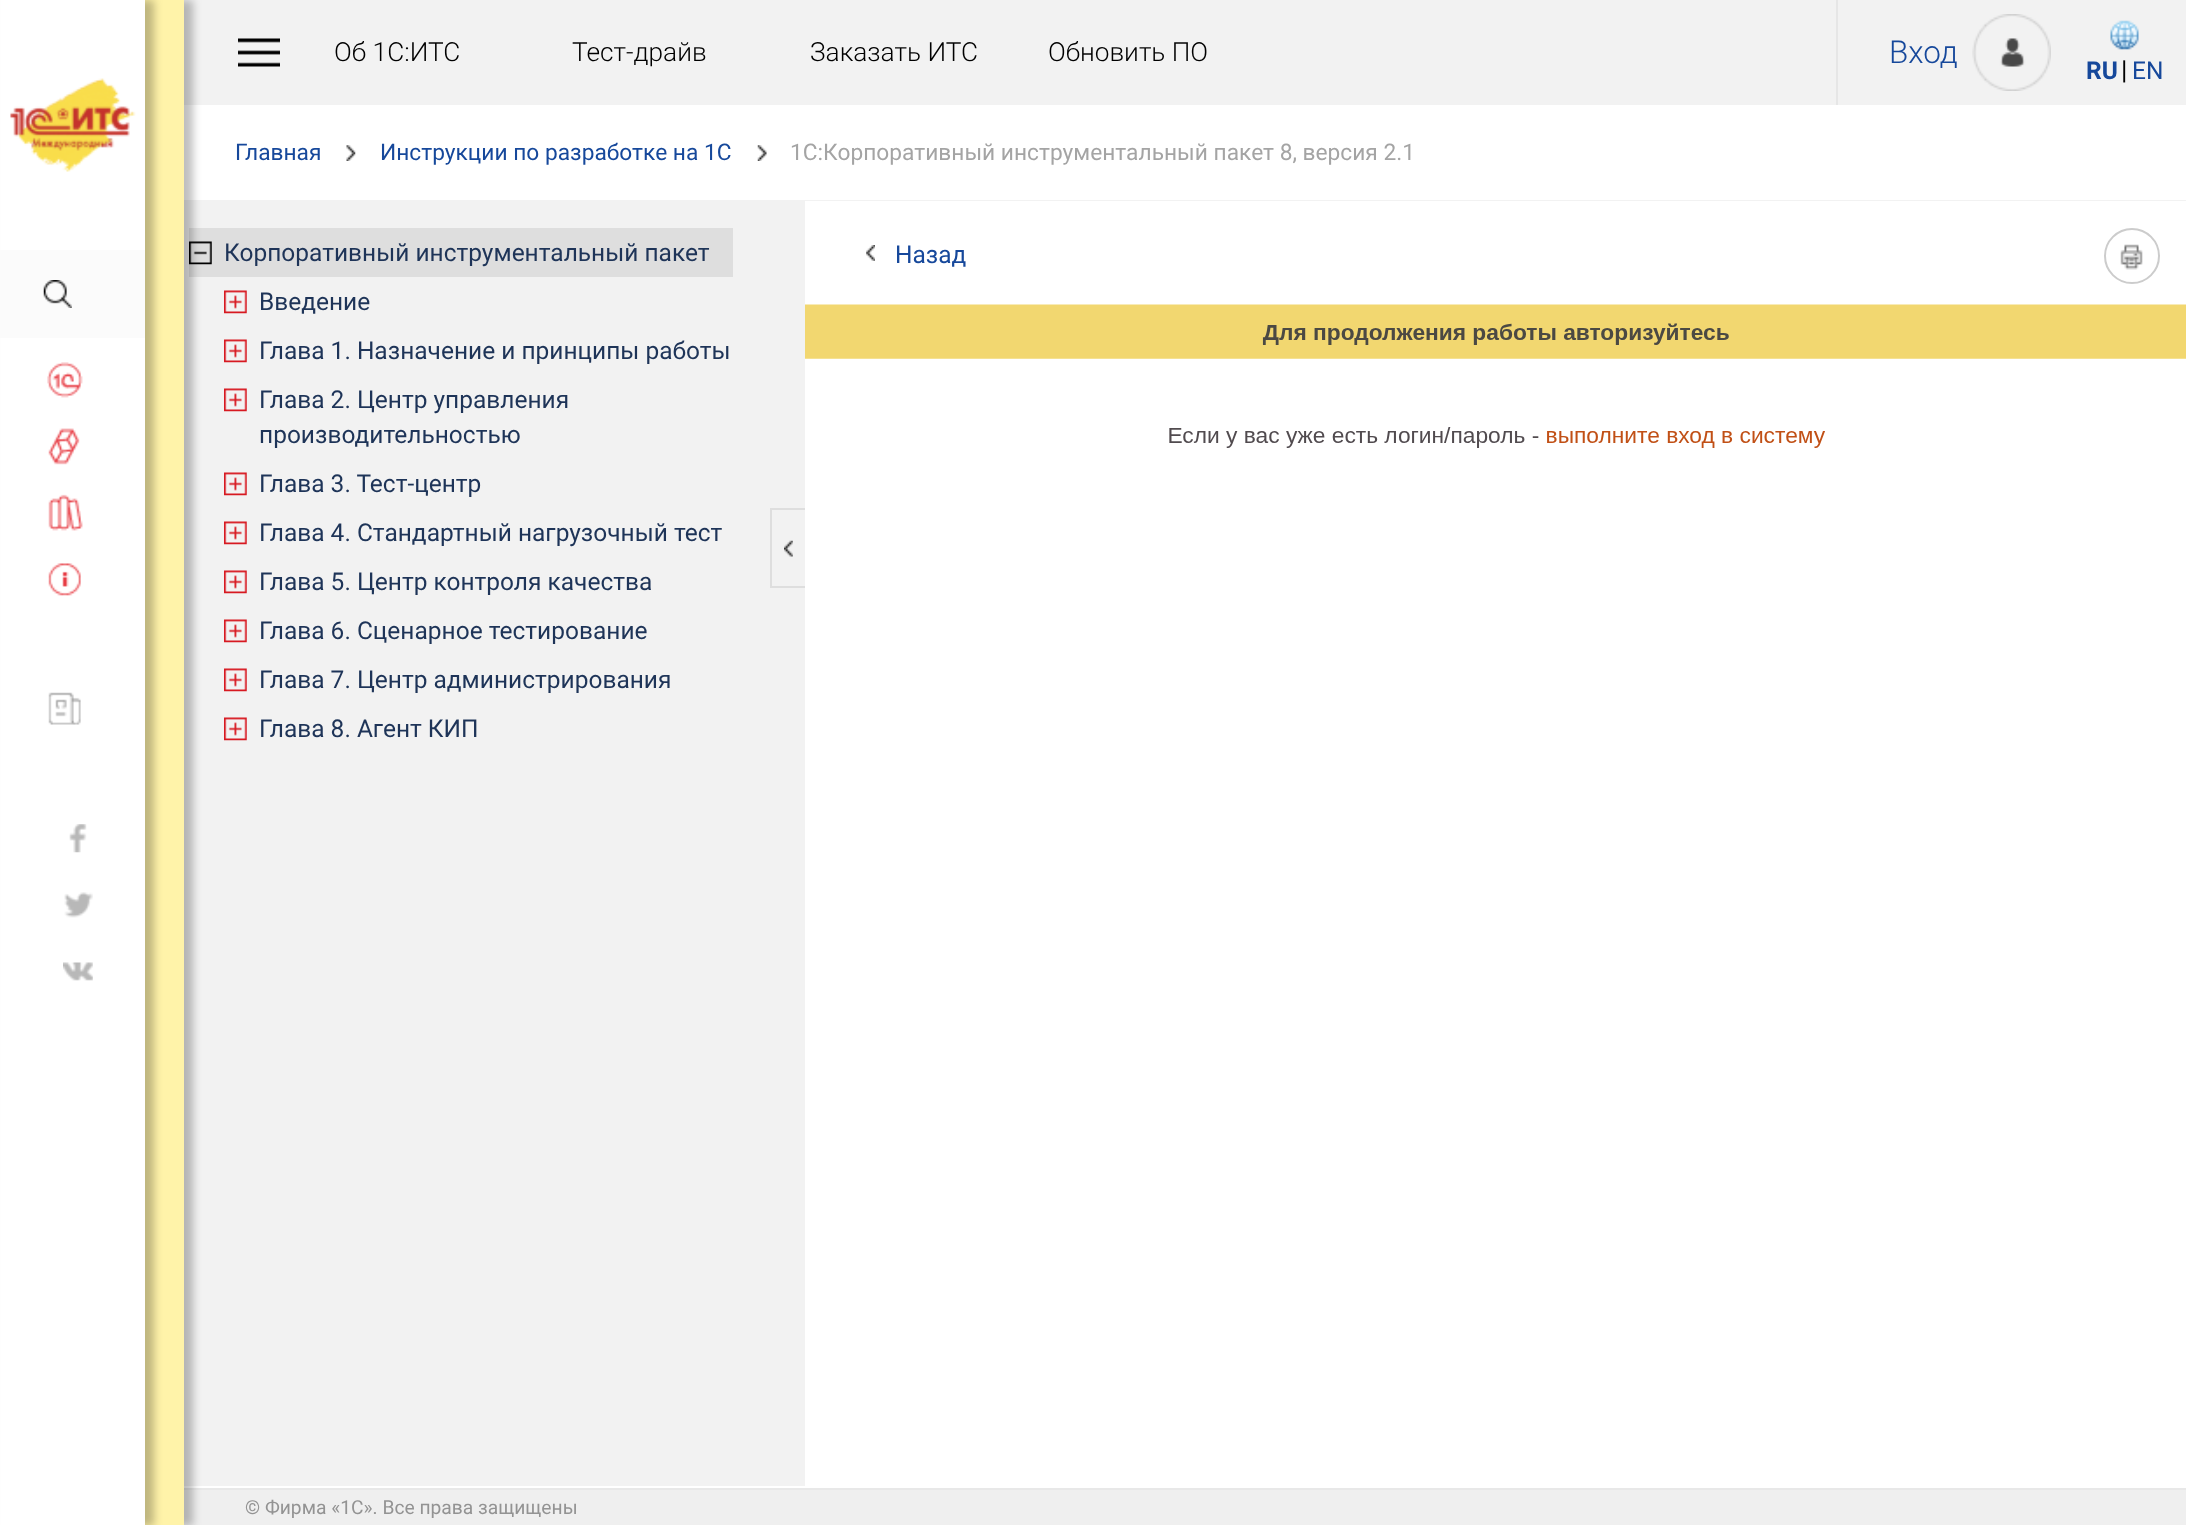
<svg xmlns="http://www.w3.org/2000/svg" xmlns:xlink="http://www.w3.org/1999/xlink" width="2186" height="1525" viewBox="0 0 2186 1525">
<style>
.cls-1{font:300 26.25px Roboto;fill:#000000}
.cls-2{font:300 31.5px Roboto;fill:#16489b}
.cls-3{font:bold 24.5px Roboto;fill:#16489b}
.cls-4{font:26.25px Roboto;fill:#000000}
.cls-5{font:24.5px Roboto;fill:#16489b}
.cls-6{font:22.75px Roboto;fill:#16489b}
.cls-7{font:22.75px Roboto;fill:#a4a4a4}
.cls-8{font:24.5px Roboto;fill:#1e3458}
.cls-9{font:19.25px Roboto;fill:#939393}
</style>
<defs>
<clipPath id="clip1"><path d="M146 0H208V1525H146ZM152 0H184V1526H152Z" clip-rule="evenodd"/></clipPath>
</defs>
<rect width="100%" height="100%" fill="#ffffff"/>
<rect fill="#fff3a9" x="145" y="0" width="39" height="1525"/>
<rect fill="#000000" fill-opacity="0.25" filter="blur(4.5px)" x="9" y="0" width="145" height="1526"/>
<rect fill="#ffffff" x="1" y="0" width="144" height="1525"/>
<image xlink:href="image0.png" x="47" y="362" width="36" height="36"/>
<image xlink:href="image1.png" x="48" y="428" width="32" height="37"/>
<image xlink:href="image2.png" x="48" y="494" width="35" height="37"/>
<image xlink:href="image3.png" x="48" y="563" width="33" height="33"/>
<rect fill="#f2f2f2" x="184" y="0" width="2002" height="105"/>
<rect fill="#f2f2f2" x="184" y="200" width="2002" height="1"/>
<rect fill="#f2f2f2" x="184" y="201" width="621" height="1285"/>
<rect fill="#dedede" x="189" y="228" width="544" height="49"/>
<image xlink:href="image15.png" x="189" y="241" width="23" height="24"/>
<rect fill="#efefef" x="184" y="1490" width="2002" height="35"/>
<rect fill="#e8e8e8" x="184" y="1488" width="2002" height="2"/>
<g clip-path="url(#clip1)">
<rect fill="#000000" fill-opacity="0.25" filter="blur(4.5px)" x="161" y="0" width="32" height="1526"/>
</g>
<image xlink:href="image4.png" x="48" y="692" width="33" height="33"/>
<image xlink:href="image5.png" x="10" y="78" width="126" height="94"/>
<rect fill="#fbfbfb" x="0" y="250" width="145" height="88"/>
<image xlink:href="image6.png" x="43" y="280" width="29" height="28"/>
<image xlink:href="image7.png" x="69" y="824" width="18" height="29"/>
<image xlink:href="image8.png" x="64" y="892" width="29" height="26"/>
<image xlink:href="image9.png" x="63" y="962" width="30" height="19"/>
<image xlink:href="image10.png" x="238" y="38" width="42" height="29"/>
<rect fill="#e6e6e6" x="1836" y="0" width="2" height="105"/>
<image xlink:href="image11.png" x="1972" y="14" width="79" height="77"/>
<image xlink:href="image12.png" x="2110" y="20" width="29" height="30"/>
<image xlink:href="image13.png" x="346" y="145" width="10" height="16"/>
<image xlink:href="image14.png" x="757" y="145" width="10" height="16"/>
<image xlink:href="image16.png" x="224" y="290" width="23" height="24"/>
<image xlink:href="image16.png" x="224" y="339" width="23" height="24"/>
<image xlink:href="image16.png" x="224" y="388" width="23" height="24"/>
<image xlink:href="image16.png" x="224" y="472" width="23" height="24"/>
<image xlink:href="image16.png" x="224" y="521" width="23" height="24"/>
<image xlink:href="image16.png" x="224" y="570" width="23" height="24"/>
<image xlink:href="image16.png" x="224" y="619" width="23" height="24"/>
<image xlink:href="image16.png" x="224" y="668" width="23" height="24"/>
<image xlink:href="image16.png" x="224" y="717" width="23" height="24"/>
<rect fill="#dedede" x="770" y="508" width="35" height="2"/>
<rect fill="#dedede" x="770" y="586" width="35" height="2"/>
<rect fill="#dedede" x="770" y="508" width="2" height="80"/>
<image xlink:href="image17.png" x="784" y="540" width="9" height="17"/>
<image xlink:href="image18.png" x="866" y="245" width="9" height="16"/>
<image xlink:href="image19.png" x="2120" y="244" width="23" height="26"/>
<circle fill="none" stroke="#cccccc" stroke-width="2" cx="2132" cy="256" r="27"/>
<image xlink:href="image20.png" x="805" y="304" width="1381" height="144"/>
<text class="cls-1" x="334" y="61">Об 1С:ИТС</text>
<text class="cls-1" x="572" y="61">Тест-драйв</text>
<text class="cls-1" x="810" y="61">Заказать ИТС</text>
<text class="cls-1" x="1048" y="61">Обновить ПО</text>
<text class="cls-2" x="1889" y="63">Вход</text>
<text class="cls-3" x="2086" y="79">RU</text>
<text class="cls-4" x="2121" y="79">|</text>
<text class="cls-5" x="2132" y="79">EN</text>
<text class="cls-6" x="235" y="160">Главная</text>
<text class="cls-6" x="380" y="160">Инструкции по разработке на 1С</text>
<text class="cls-7" x="790" y="160">1С:Корпоративный инструментальный пакет 8, версия 2.1</text>
<text class="cls-8" x="224" y="261">Корпоративный инструментальный пакет</text>
<text class="cls-8" x="259" y="310">Введение</text>
<text class="cls-8" x="259" y="359">Глава 1. Назначение и принципы работы</text>
<text class="cls-8"><tspan x="259" y="408">Глава 2. Центр управления</tspan><tspan x="259" y="443">производительностью</tspan></text>
<text class="cls-8" x="259" y="492">Глава 3. Тест-центр</text>
<text class="cls-8" x="259" y="541">Глава 4. Стандартный нагрузочный тест</text>
<text class="cls-8" x="259" y="590">Глава 5. Центр контроля качества</text>
<text class="cls-8" x="259" y="639">Глава 6. Сценарное тестирование</text>
<text class="cls-8" x="259" y="688">Глава 7. Центр администрирования</text>
<text class="cls-8" x="259" y="737">Глава 8. Агент КИП</text>
<text class="cls-5" x="895" y="263">Назад</text>
<text class="cls-9" x="245" y="1514">© Фирма «1С». Все права защищены</text>
</svg>
